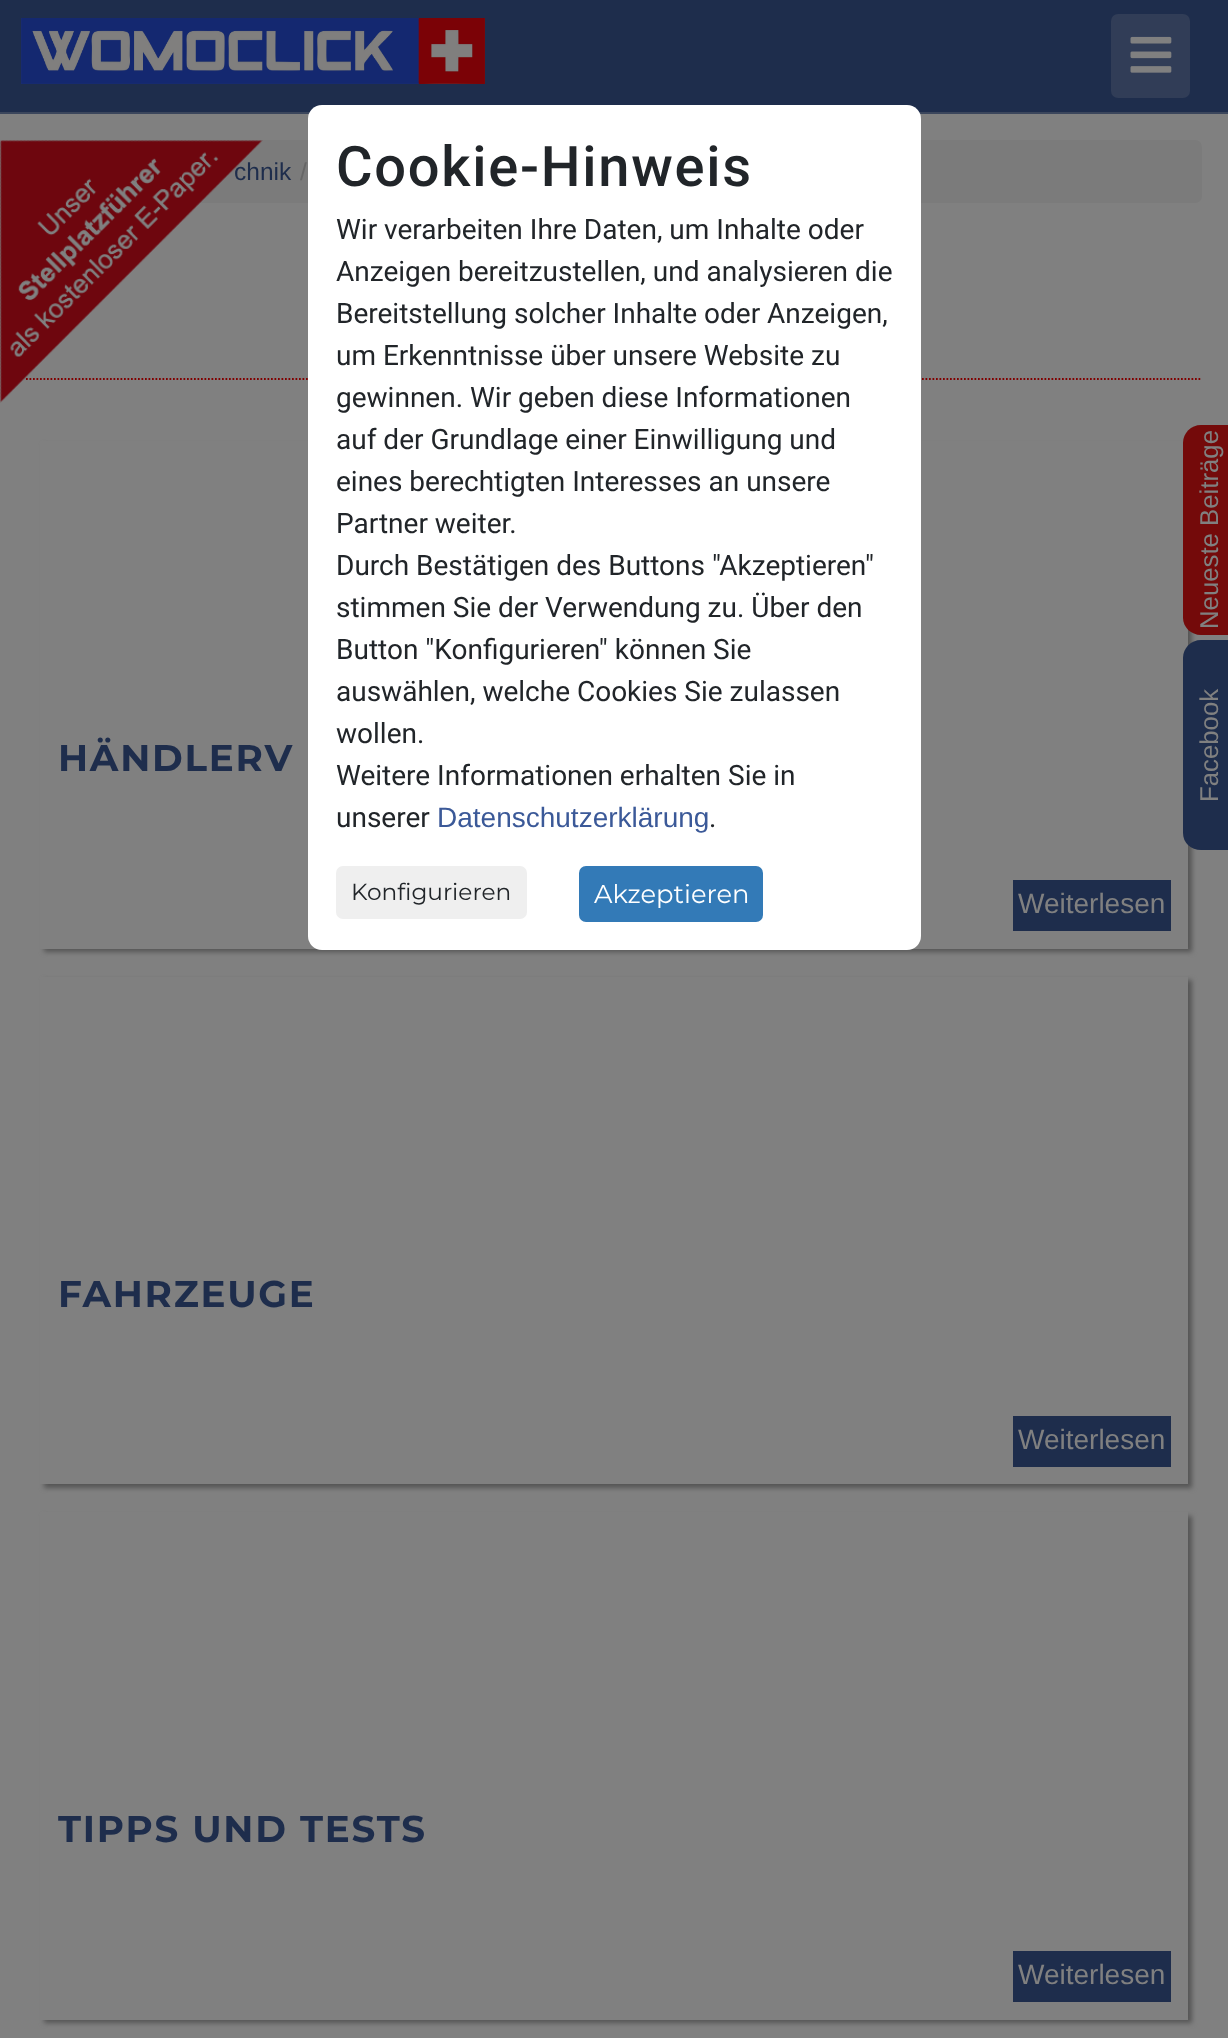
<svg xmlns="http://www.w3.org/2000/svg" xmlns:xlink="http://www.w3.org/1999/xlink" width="1228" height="2038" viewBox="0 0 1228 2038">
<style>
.cls-1{font:24.5px Liberation Sans;fill:#1e2d4c}
.cls-2{font:24.5px Liberation Sans;fill:#666666}
.cls-3{font:500 56px Roboto;letter-spacing:1.75px;fill:#212529}
.cls-4{font:28px Roboto;fill:#212529}
.cls-5{font:28px Liberation Sans;fill:#3b5998}
.cls-6{font:23.25px Montserrat;fill:#212529}
.cls-7{font:25.75px Montserrat;fill:#ffffff}
.cls-8{font:25.75px Liberation Sans;fill:#808080}
.cls-9{font:bold 37.25px Montserrat;letter-spacing:1.75px;fill:#1e2d4c}
.cls-10{font:28px Liberation Sans;fill:#808080}
</style>
<defs>
<clipPath id="clip1"><path d="M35 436H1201V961H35ZM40 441H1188V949H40Z" clip-rule="evenodd"/></clipPath>
<clipPath id="clip2"><path d="M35 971H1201V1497H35ZM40 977H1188V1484H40Z" clip-rule="evenodd"/></clipPath>
<clipPath id="clip3"><path d="M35 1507H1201V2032H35ZM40 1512H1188V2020H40Z" clip-rule="evenodd"/></clipPath>
</defs>
<rect width="100%" height="100%" fill="#808080"/>
<rect fill="#1e2d4c" x="0" y="0" width="1228" height="112"/>
<rect fill="#3b465c" x="0" y="112" width="1228" height="2"/>
<image xlink:href="image0.png" x="21" y="18" width="464" height="66"/>
<rect fill="#313d57" x="1111" y="14" width="79" height="84" rx="7"/>
<image xlink:href="image1.png" x="1130" y="36" width="42" height="37"/>
<rect fill="#7b7b7b" x="26" y="140" width="1176" height="63" rx="7"/>
<path fill="none" stroke="#800000" stroke-width="1.8" stroke-dasharray="1.75 1.75" d="M26 379H1202"/>
<g clip-path="url(#clip1)">
<rect fill="#555555" filter="blur(2.5px)" x="44" y="445" width="1148" height="507"/>
</g>
<rect fill="#ffffff" x="308" y="105" width="613" height="845" rx="14"/>
<rect fill="#efefef" x="336" y="866" width="191" height="53" rx="7"/>
<rect fill="#337ab7" x="579" y="866" width="184" height="56" rx="7"/>
<path fill="#740a0a" d="M1183 618V443C1183 433 1191 425 1201 425H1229V635H1201C1191 635 1183 627 1183 618Z"/>
<path fill="#1e2d4c" d="M1183 833V658C1183 648 1191 640 1201 640H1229V850H1201C1191 850 1183 843 1183 833Z"/>
<rect fill="#1e2d4c" x="1013" y="880" width="158" height="51"/>
<g clip-path="url(#clip2)">
<rect fill="#555555" filter="blur(2.5px)" x="44" y="980" width="1148" height="508"/>
</g>
<rect fill="#1e2d4c" x="1013" y="1416" width="158" height="51"/>
<g clip-path="url(#clip3)">
<rect fill="#555555" filter="blur(2.5px)" x="44" y="1516" width="1148" height="507"/>
</g>
<rect fill="#1e2d4c" x="1013" y="1951" width="158" height="51"/>
<text class="cls-1" x="234" y="180">chnik</text>
<image xlink:href="image2.png" x="0" y="140" width="263" height="263"/>
<text class="cls-2" x="300" y="180">/</text>
<text class="cls-3" x="336" y="186">Cookie-Hinweis</text>
<text class="cls-4"><tspan x="336" y="239">Wir verarbeiten Ihre Daten, um Inhalte oder</tspan><tspan x="336" y="281">Anzeigen bereitzustellen, und analysieren die</tspan><tspan x="336" y="323">Bereitstellung solcher Inhalte oder Anzeigen,</tspan><tspan x="336" y="365">um Erkenntnisse über unsere Website zu</tspan><tspan x="336" y="407">gewinnen. Wir geben diese Informationen</tspan><tspan x="336" y="449">auf der Grundlage einer Einwilligung und</tspan><tspan x="336" y="491">eines berechtigten Interesses an unsere</tspan><tspan x="336" y="533">Partner weiter.</tspan><tspan x="336" y="575">Durch Bestätigen des Buttons "Akzeptieren"</tspan><tspan x="336" y="617">stimmen Sie der Verwendung zu. Über den</tspan><tspan x="336" y="659">Button "Konfigurieren" können Sie</tspan><tspan x="336" y="701">auswählen, welche Cookies Sie zulassen</tspan><tspan x="336" y="743">wollen.</tspan><tspan x="336" y="785">Weitere Informationen erhalten Sie in</tspan><tspan x="336" y="827">unserer</tspan></text>
<text class="cls-5" x="437" y="827">Datenschutzerklärung</text>
<text class="cls-4" x="709" y="827">.</text>
<text class="cls-6" x="351" y="900">Konfigurieren</text>
<text class="cls-7" x="594" y="903">Akzeptieren</text>
<text class="cls-8" x="1218" y="629" transform="rotate(-90 1218 629)">Neueste Beiträge</text>
<text class="cls-8" x="1218" y="802" transform="rotate(-90 1218 802)">Facebook</text>
<text class="cls-9" x="58" y="771">HÄNDLERV</text>
<text class="cls-10" x="1018" y="913">Weiterlesen</text>
<text class="cls-9" x="58" y="1307">FAHRZEUGE</text>
<text class="cls-10" x="1018" y="1449">Weiterlesen</text>
<text class="cls-9" x="58" y="1842">TIPPS UND TESTS</text>
<text class="cls-10" x="1018" y="1984">Weiterlesen</text>
</svg>
